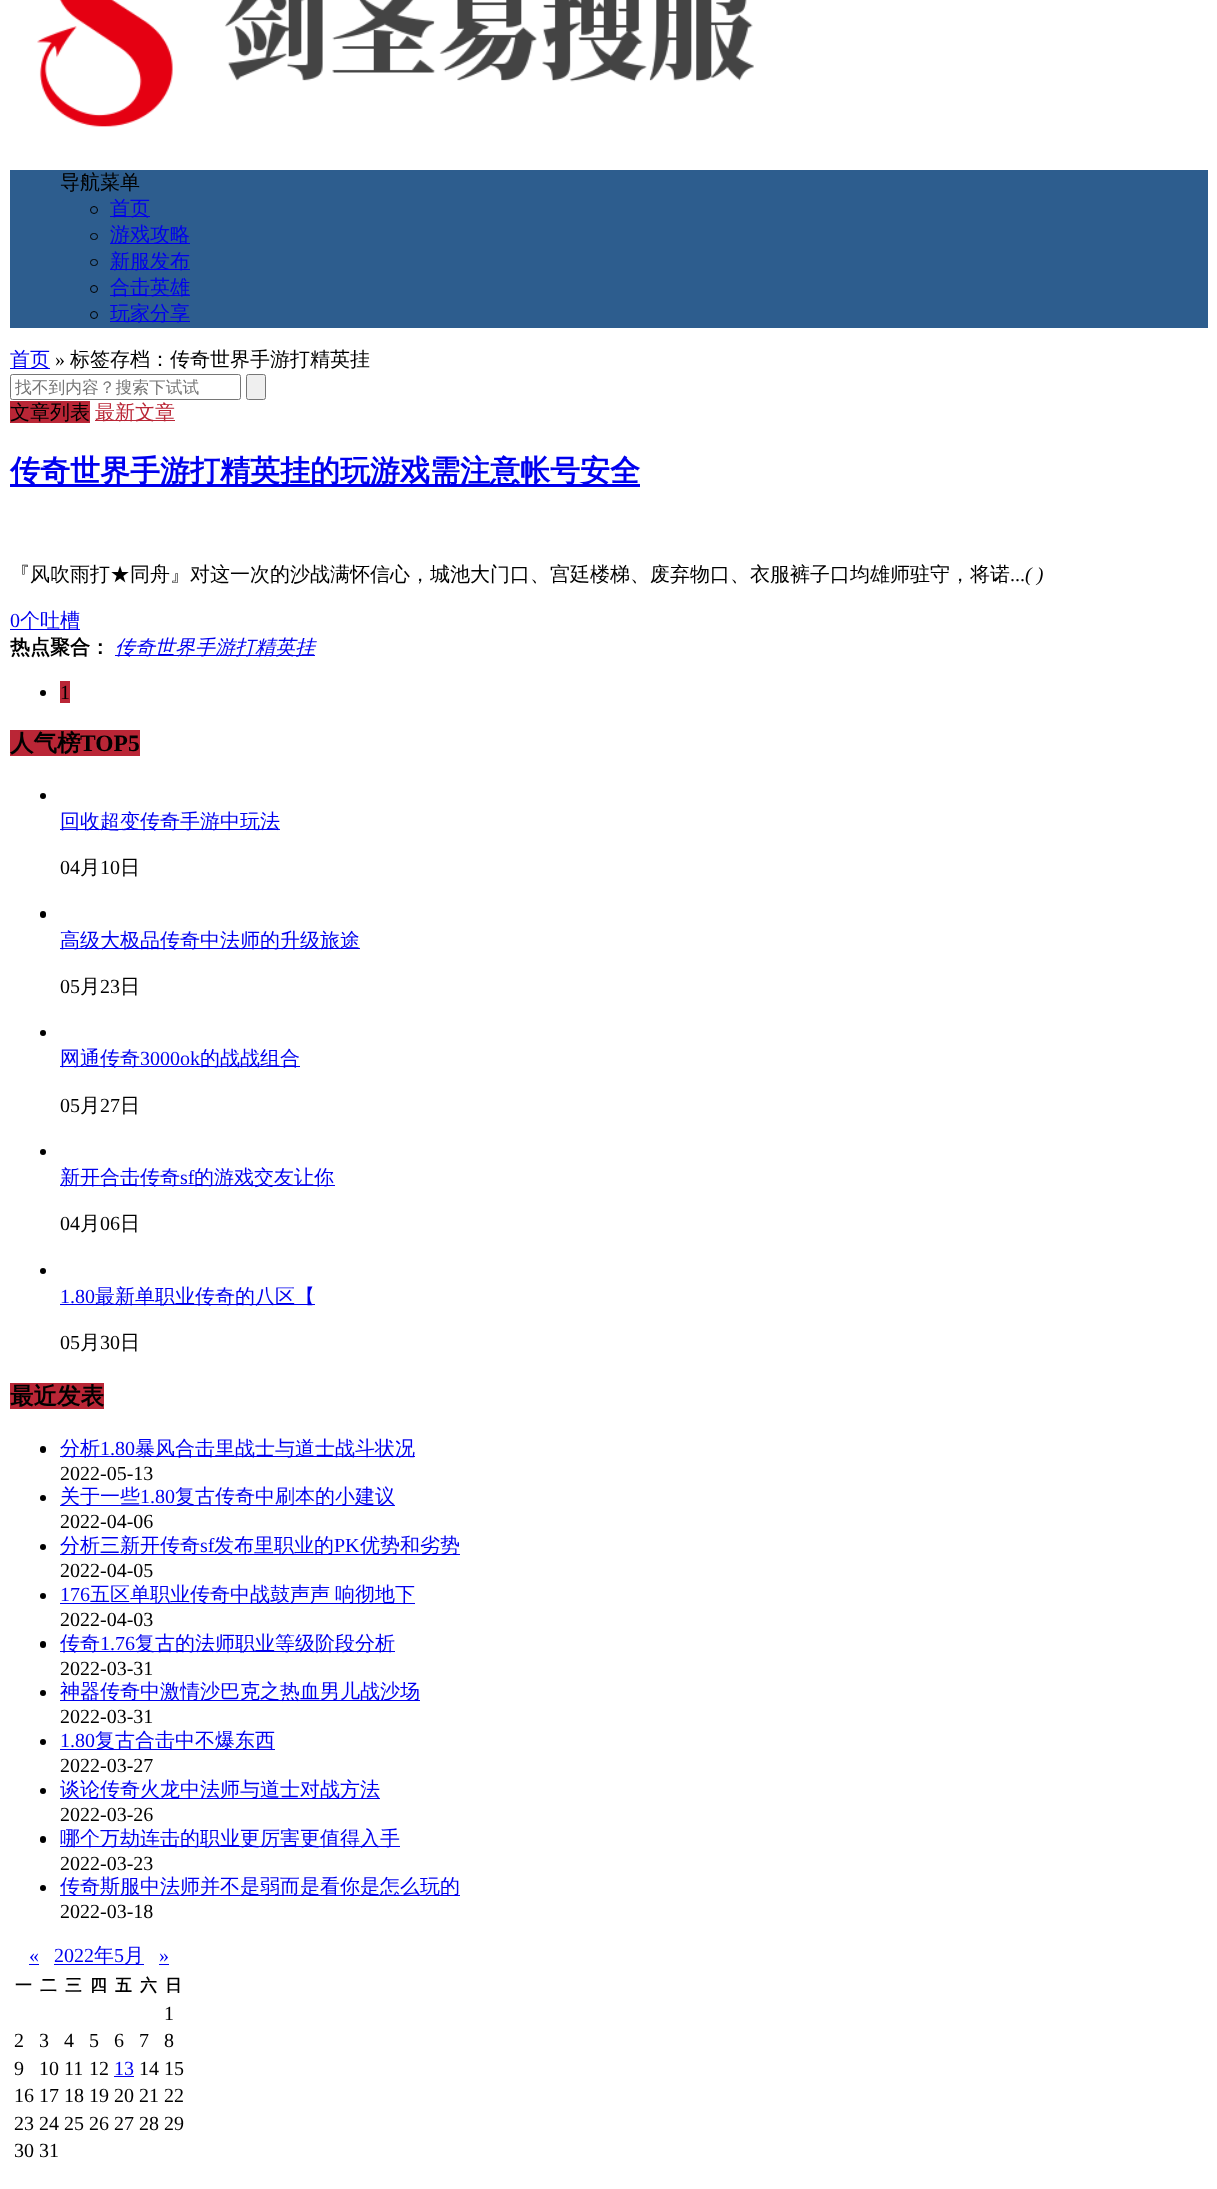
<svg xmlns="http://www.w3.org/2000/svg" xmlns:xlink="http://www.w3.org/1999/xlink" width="1217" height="2189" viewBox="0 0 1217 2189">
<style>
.cls-1{font:500 20px WenQuanYi Zen Hei;fill:#000000}
.cls-2{font:500 20px WenQuanYi Zen Hei;fill:#0000ee}
.cls-3{font:20px Liberation Serif;fill:#000000}
.cls-4{font:500 16.75px WenQuanYi Zen Hei;fill:#757575}
.cls-5{font:500 20px WenQuanYi Zen Hei;fill:#ba2636}
.cls-6{font:bold 30px WenQuanYi Zen Hei;fill:#0000ee}
.cls-7{font:italic 20px Liberation Serif;fill:#000000}
.cls-8{font:20px Liberation Serif;fill:#0000ee}
.cls-9{font:bold 20px WenQuanYi Zen Hei;fill:#000000}
.cls-10{font:italic 500 20px WenQuanYi Zen Hei;fill:#0000ee}
.cls-11{font:bold 23.5px WenQuanYi Zen Hei;fill:#000000}
.cls-12{font:bold 23.5px Liberation Serif;fill:#000000}
.cls-13{font:bold 16.75px WenQuanYi Zen Hei;fill:#000000}
</style>
<rect width="100%" height="100%" fill="#ffffff"/>
<image xlink:href="image0.png" x="37" y="0" width="717" height="127"/>
<rect fill="#2d5d8e" x="10" y="170" width="1198" height="158"/>
<circle fill="none" stroke="#000000" cx="94" cy="210" r="3.5"/>
<rect fill="#0000ee" x="110" y="216" width="40" height="1"/>
<rect fill="none" stroke="#000000" x="90.5" y="233.5" width="7" height="6" rx="3"/>
<rect fill="#0000ee" x="110" y="243" width="80" height="1"/>
<rect fill="none" stroke="#000000" x="90.5" y="259.5" width="7" height="6" rx="3"/>
<rect fill="#0000ee" x="110" y="269" width="80" height="1"/>
<circle fill="none" stroke="#000000" cx="94" cy="289" r="3.5"/>
<rect fill="#0000ee" x="110" y="295" width="80" height="1"/>
<circle fill="none" stroke="#000000" cx="94" cy="315" r="3.5"/>
<rect fill="#0000ee" x="110" y="321" width="80" height="1"/>
<rect fill="#0000ee" x="10" y="368" width="40" height="1"/>
<rect fill="none" stroke="#767676" x="10.5" y="374.5" width="230" height="25" rx="2"/>
<rect fill="#efefef" stroke="#767676" x="246.5" y="374.5" width="19" height="25" rx="2"/>
<rect fill="#ba2636" x="10" y="401" width="80" height="22"/>
<rect fill="#ba2636" x="95" y="420" width="80" height="1"/>
<rect fill="#0000ee" x="10" y="484" width="630" height="3"/>
<rect fill="#0000ee" x="10" y="629" width="70" height="1"/>
<rect fill="#0000ee" x="115" y="655" width="200" height="1"/>
<circle fill="#000000" cx="43" cy="693" r="3"/>
<rect fill="#ba2636" x="60" y="681" width="10" height="22"/>
<rect fill="#ba2636" x="10" y="730" width="130" height="26"/>
<circle fill="#000000" cx="43" cy="796" r="3"/>
<rect fill="#0000ee" x="60" y="829" width="220" height="1"/>
<rect fill="#000000" x="40" y="911" width="6" height="7" rx="3"/>
<rect fill="#0000ee" x="60" y="948" width="300" height="1"/>
<circle fill="#000000" cx="43" cy="1033" r="3"/>
<rect fill="#0000ee" x="60" y="1066" width="240" height="1"/>
<circle fill="#000000" cx="43" cy="1152" r="3"/>
<rect fill="#0000ee" x="60" y="1185" width="275" height="1"/>
<circle fill="#000000" cx="43" cy="1271" r="3"/>
<rect fill="#0000ee" x="60" y="1304" width="255" height="1"/>
<rect fill="#ba2636" x="10" y="1383" width="94" height="26"/>
<rect fill="#000000" x="40" y="1446" width="6" height="7" rx="3"/>
<rect fill="#0000ee" x="60" y="1456" width="355" height="1"/>
<circle fill="#000000" cx="43" cy="1498" r="3"/>
<rect fill="#0000ee" x="60" y="1505" width="335" height="1"/>
<circle fill="#000000" cx="43" cy="1547" r="3"/>
<rect fill="#0000ee" x="60" y="1554" width="400" height="1"/>
<circle fill="#000000" cx="43" cy="1596" r="3"/>
<rect fill="#0000ee" x="60" y="1603" width="355" height="1"/>
<rect fill="#000000" x="40" y="1641" width="6" height="7" rx="3"/>
<rect fill="#0000ee" x="60" y="1651" width="335" height="1"/>
<circle fill="#000000" cx="43" cy="1693" r="3"/>
<rect fill="#0000ee" x="60" y="1700" width="360" height="1"/>
<circle fill="#000000" cx="43" cy="1742" r="3"/>
<rect fill="#0000ee" x="60" y="1749" width="215" height="1"/>
<circle fill="#000000" cx="43" cy="1791" r="3"/>
<rect fill="#0000ee" x="60" y="1798" width="320" height="1"/>
<rect fill="#000000" x="40" y="1836" width="6" height="7" rx="3"/>
<rect fill="#0000ee" x="60" y="1846" width="340" height="1"/>
<circle fill="#000000" cx="43" cy="1888" r="3"/>
<rect fill="#0000ee" x="60" y="1895" width="400" height="1"/>
<rect fill="#0000ee" x="29" y="1964" width="10" height="1"/>
<rect fill="#0000ee" x="54" y="1964" width="90" height="1"/>
<rect fill="#0000ee" x="159" y="1964" width="10" height="1"/>
<rect fill="#0000ee" x="114" y="2076" width="20" height="1"/>
<text class="cls-1" x="60" y="189">导航菜单</text>
<text class="cls-2"><tspan x="110" y="215">首页</tspan><tspan x="110" y="241">游戏攻略</tspan><tspan x="110" y="268">新服发布</tspan><tspan x="110" y="294">合击英雄</tspan><tspan x="110" y="320">玩家分享</tspan></text>
<text class="cls-2" x="10" y="366">首页</text>
<text class="cls-3" x="55" y="366">»</text>
<text class="cls-1" x="70" y="366">标签存档：传奇世界手游打精英挂</text>
<text class="cls-4" x="15" y="393">找不到内容？搜索下试试</text>
<text class="cls-1" x="10" y="419">文章列表</text>
<text class="cls-5" x="95" y="419">最新文章</text>
<text class="cls-6" x="10" y="481">传奇世界手游打精英挂的玩游戏需注意帐号安全</text>
<text class="cls-1" x="10" y="581">『风吹雨打★同舟』对这一次的沙战满怀信心，城池大门口、宫廷楼梯、废弃物口、衣服裤子口均雄师驻守，将诺</text>
<text class="cls-3" x="1010" y="581">...</text>
<text class="cls-7" x="1025" y="581">( )</text>
<text class="cls-8" x="10" y="627">0</text>
<text class="cls-2" x="20" y="627">个吐槽</text>
<text class="cls-9" x="10" y="654">热点聚合：</text>
<text class="cls-10" x="115" y="654">传奇世界手游打精英挂</text>
<text class="cls-3" x="60" y="699">1</text>
<text class="cls-11" x="10" y="751">人气榜</text>
<text class="cls-12" x="80" y="751">TOP5</text>
<text class="cls-2" x="60" y="828">回收超变传奇手游中玩法</text>
<text class="cls-3" x="60" y="874">04</text>
<text class="cls-1" x="80" y="874">月</text>
<text class="cls-3" x="100" y="874">10</text>
<text class="cls-1" x="120" y="874">日</text>
<text class="cls-2" x="60" y="947">高级大极品传奇中法师的升级旅途</text>
<text class="cls-3" x="60" y="993">05</text>
<text class="cls-1" x="80" y="993">月</text>
<text class="cls-3" x="100" y="993">23</text>
<text class="cls-1" x="120" y="993">日</text>
<text class="cls-2" x="60" y="1065">网通传奇</text>
<text class="cls-8" x="140" y="1065">3000ok</text>
<text class="cls-2" x="200" y="1065">的战战组合</text>
<text class="cls-3" x="60" y="1112">05</text>
<text class="cls-1" x="80" y="1112">月</text>
<text class="cls-3" x="100" y="1112">27</text>
<text class="cls-1" x="120" y="1112">日</text>
<text class="cls-2" x="60" y="1184">新开合击传奇</text>
<text class="cls-8" x="180" y="1184">sf</text>
<text class="cls-2" x="194" y="1184">的游戏交友让你</text>
<text class="cls-3" x="60" y="1230">04</text>
<text class="cls-1" x="80" y="1230">月</text>
<text class="cls-3" x="100" y="1230">06</text>
<text class="cls-1" x="120" y="1230">日</text>
<text class="cls-8" x="60" y="1303">1.80</text>
<text class="cls-2" x="95" y="1303">最新单职业传奇的八区【</text>
<text class="cls-3" x="60" y="1349">05</text>
<text class="cls-1" x="80" y="1349">月</text>
<text class="cls-3" x="100" y="1349">30</text>
<text class="cls-1" x="120" y="1349">日</text>
<text class="cls-11" x="10" y="1404">最近发表</text>
<text class="cls-2" x="60" y="1455">分析</text>
<text class="cls-8" x="100" y="1455">1.80</text>
<text class="cls-2" x="135" y="1455">暴风合击里战士与道士战斗状况</text>
<text class="cls-3" x="60" y="1480">2022-05-13</text>
<text class="cls-2" x="60" y="1503">关于一些</text>
<text class="cls-8" x="140" y="1503">1.80</text>
<text class="cls-2" x="175" y="1503">复古传奇中刷本的小建议</text>
<text class="cls-3" x="60" y="1528">2022-04-06</text>
<text class="cls-2" x="60" y="1552">分析三新开传奇</text>
<text class="cls-8" x="200" y="1552">sf</text>
<text class="cls-2" x="214" y="1552">发布里职业的</text>
<text class="cls-8" x="334" y="1552">PK</text>
<text class="cls-2" x="360" y="1552">优势和劣势</text>
<text class="cls-3" x="60" y="1577">2022-04-05</text>
<text class="cls-8" x="60" y="1601">176</text>
<text class="cls-2" x="90" y="1601">五区单职业传奇中战鼓声声</text>
<text class="cls-2" x="335" y="1601">响彻地下</text>
<text class="cls-3" x="60" y="1626">2022-04-03</text>
<text class="cls-2" x="60" y="1650">传奇</text>
<text class="cls-8" x="100" y="1650">1.76</text>
<text class="cls-2" x="135" y="1650">复古的法师职业等级阶段分析</text>
<text class="cls-3" x="60" y="1675">2022-03-31</text>
<text class="cls-2" x="60" y="1698">神器传奇中激情沙巴克之热血男儿战沙场</text>
<text class="cls-3" x="60" y="1723">2022-03-31</text>
<text class="cls-8" x="60" y="1747">1.80</text>
<text class="cls-2" x="95" y="1747">复古合击中不爆东西</text>
<text class="cls-3" x="60" y="1772">2022-03-27</text>
<text class="cls-2" x="60" y="1796">谈论传奇火龙中法师与道士对战方法</text>
<text class="cls-3" x="60" y="1821">2022-03-26</text>
<text class="cls-2" x="60" y="1845">哪个万劫连击的职业更厉害更值得入手</text>
<text class="cls-3" x="60" y="1870">2022-03-23</text>
<text class="cls-2" x="60" y="1893">传奇斯服中法师并不是弱而是看你是怎么玩的</text>
<text class="cls-3" x="60" y="1918">2022-03-18</text>
<text class="cls-8" x="29" y="1962">«</text>
<text class="cls-8" x="54" y="1962">2022</text>
<text class="cls-2" x="94" y="1962">年</text>
<text class="cls-8" x="114" y="1962">5</text>
<text class="cls-2" x="124" y="1962">月</text>
<text class="cls-8" x="159" y="1962">»</text>
<text class="cls-13" x="15" y="1991">一</text>
<text class="cls-13" x="40" y="1991">二</text>
<text class="cls-13" x="65" y="1991">三</text>
<text class="cls-13" x="90" y="1991">四</text>
<text class="cls-13" x="115" y="1991">五</text>
<text class="cls-13" x="140" y="1991">六</text>
<text class="cls-13" x="165" y="1991">日</text>
<text class="cls-3" x="164" y="2020">1</text>
<text class="cls-3" x="14" y="2047">2</text>
<text class="cls-3" x="39" y="2047">3</text>
<text class="cls-3" x="64" y="2047">4</text>
<text class="cls-3" x="89" y="2047">5</text>
<text class="cls-3" x="114" y="2047">6</text>
<text class="cls-3" x="139" y="2047">7</text>
<text class="cls-3" x="164" y="2047">8</text>
<text class="cls-3" x="14" y="2075">9</text>
<text class="cls-3" x="39" y="2075">10 11</text>
<text class="cls-3" x="89" y="2075">12</text>
<text class="cls-8" x="114" y="2075">13</text>
<text class="cls-3" x="139" y="2075">14 15</text>
<text class="cls-3"><tspan x="14" y="2102">16 17 18 19 20 21 22</tspan><tspan x="14" y="2130">23 24 25 26 27 28 29</tspan><tspan x="14" y="2157">30 31</tspan></text>
</svg>
